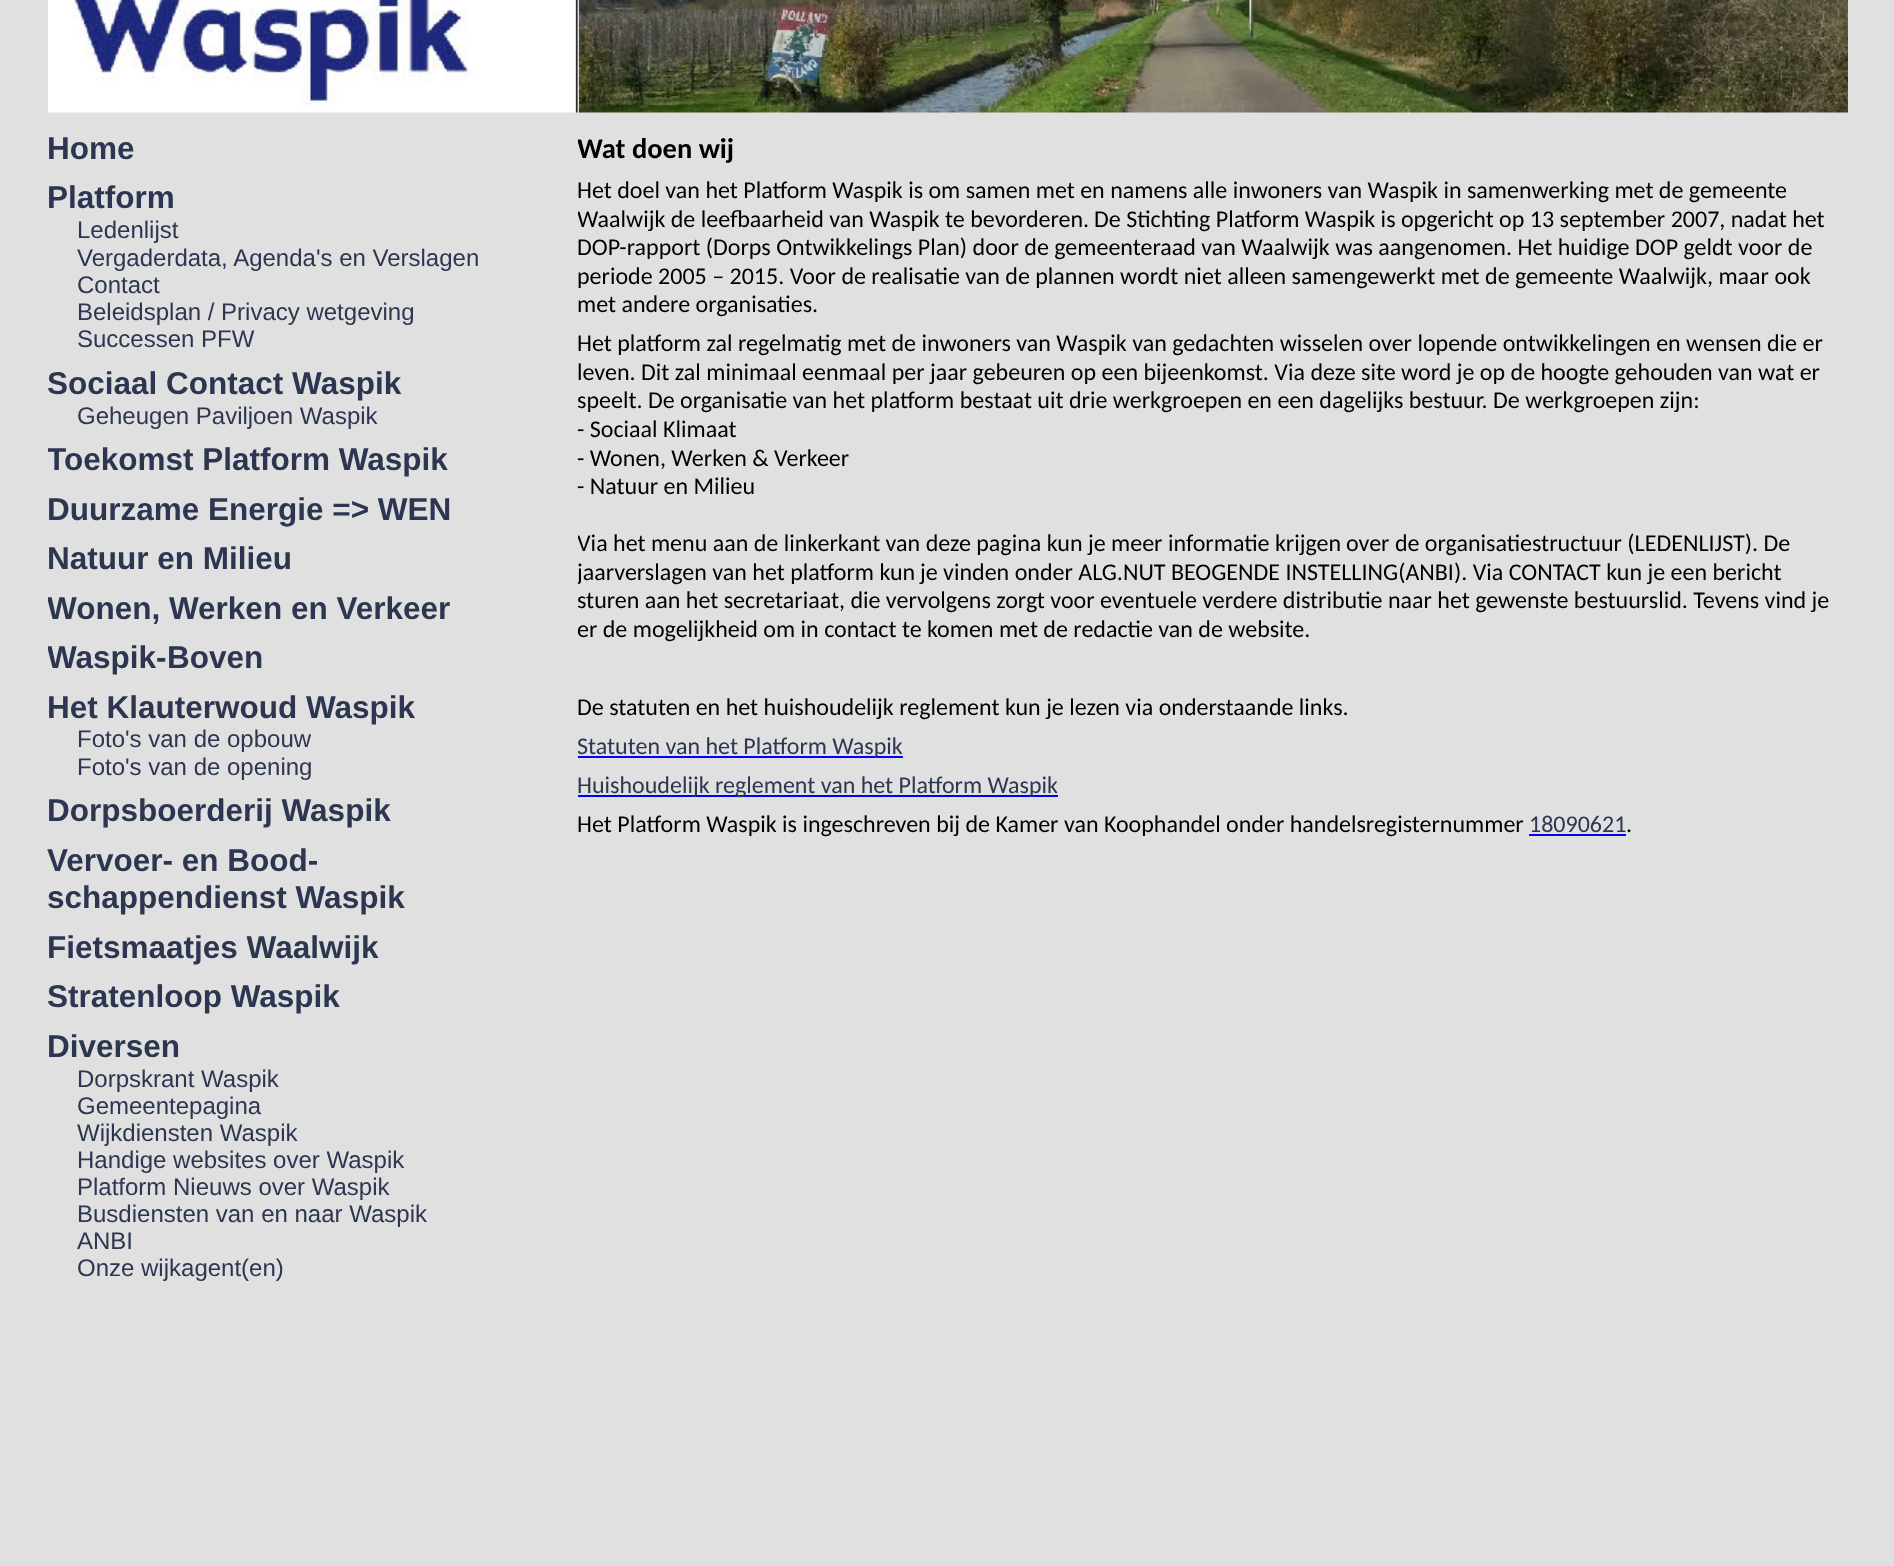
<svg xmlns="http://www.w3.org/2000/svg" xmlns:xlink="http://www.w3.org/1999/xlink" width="1894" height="1566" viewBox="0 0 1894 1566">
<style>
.cls-1{font:bold 31.5px Liberation Sans;fill:#2c3651}
.cls-2{font:24px Liberation Sans;fill:#2c3651}
.cls-3{font:bold 28.5px Carlito;fill:#000000}
.cls-4{font:24px Carlito;fill:#000000}
.cls-5{font:24px Carlito;fill:#2c3651}
</style>
<defs>
<clipPath id="clip1"><rect x="48" y="131" width="504" height="1248"/></clipPath>
<clipPath id="clip2"><rect x="578" y="131" width="1270" height="1203"/></clipPath>
</defs>
<rect width="100%" height="100%" fill="#e0e0e0"/>
<image xlink:href="image0.png" x="48" y="0" width="530" height="113"/>
<image xlink:href="image1.png" x="579" y="0" width="1269" height="113"/>
<rect fill="#0000ff" x="578" y="756" width="325" height="2"/>
<rect fill="#0000ff" x="578" y="795" width="480" height="2"/>
<rect fill="#0000ff" x="1529" y="834" width="97" height="2"/>
<text class="cls-1"><tspan x="47" y="159">Home</tspan><tspan x="47" y="208">Platform</tspan></text>
<text class="cls-2"><tspan x="77" y="238">Ledenlijst</tspan><tspan x="77" y="266">Vergaderdata, Agenda's en Verslagen</tspan><tspan x="77" y="293">Contact</tspan><tspan x="77" y="320">Beleidsplan / Privacy wetgeving</tspan><tspan x="77" y="347">Successen PFW</tspan></text>
<text class="cls-1" x="47" y="394">Sociaal Contact Waspik</text>
<text class="cls-2" x="77" y="424">Geheugen Paviljoen Waspik</text>
<g clip-path="url(#clip1)">
<text class="cls-1" x="47" y="470">Toekomst Platform Waspik</text>
</g>
<text class="cls-1"><tspan x="47" y="520">Duurzame Energie =&gt; WEN</tspan><tspan x="47" y="569">Natuur en Milieu</tspan></text>
<g clip-path="url(#clip1)">
<text class="cls-1"><tspan x="47" y="619">Wonen, Werken en Verkeer</tspan><tspan x="47" y="668">Waspik-</tspan></text>
</g>
<text class="cls-1" x="167" y="668">Boven</text>
<text class="cls-1" x="47" y="718">Het Klauterwoud Waspik</text>
<text class="cls-2"><tspan x="77" y="747">Foto's van de opbouw</tspan><tspan x="77" y="775">Foto's van de opening</tspan></text>
<text class="cls-1"><tspan x="47" y="821">Dorpsboerderij Waspik</tspan><tspan x="47" y="871">Vervoer- en Bood-</tspan><tspan x="47" y="908">schappendienst Waspik</tspan><tspan x="47" y="958">Fietsmaatjes Waalwijk</tspan><tspan x="47" y="1007">Stratenloop Waspik</tspan><tspan x="47" y="1057">Diversen</tspan></text>
<text class="cls-2"><tspan x="77" y="1087">Dorpskrant Waspik</tspan><tspan x="77" y="1114">Gemeentepagina</tspan><tspan x="77" y="1141">Wijkdiensten Waspik</tspan><tspan x="77" y="1168">Handige websites over Waspik</tspan><tspan x="77" y="1195">Platform Nieuws over Waspik</tspan><tspan x="77" y="1222">Busdiensten van en naar Waspik</tspan><tspan x="77" y="1249">ANBI</tspan><tspan x="77" y="1276">Onze wijkagent(en)</tspan></text>
<g clip-path="url(#clip2)">
<text class="cls-3" x="577" y="158">Wat doen wij</text>
</g>
<text class="cls-4" x="577" y="198">Het doel van het Platform Waspik is om samen met en namens alle inwoners van Waspik in samenwerking met de gemeente</text>
<g clip-path="url(#clip2)">
<text class="cls-4" x="577" y="227">Waalwijk de leefbaarheid van Waspik te bevorderen.</text>
</g>
<text class="cls-4" x="1094" y="227">De Stichting Platform Waspik is opgericht op 13 september 2007, nadat het</text>
<text class="cls-4"><tspan x="577" y="255">DOP-rapport (Dorps Ontwikkelings Plan) door de gemeenteraad van Waalwijk was aangenomen. Het huidige DOP geldt voor de</tspan><tspan x="577" y="284">periode 2005 – 2015. Voor de realisatie van de plannen wordt niet alleen samengewerkt met de gemeente Waalwijk, maar ook</tspan><tspan x="577" y="312">met andere organisaties.</tspan><tspan x="577" y="351">Het platform zal regelmatig met de inwoners van Waspik van gedachten wisselen over lopende ontwikkelingen en wensen die er</tspan><tspan x="577" y="380">leven. Dit zal minimaal eenmaal per jaar gebeuren op een bijeenkomst. Via deze site word je op de hoogte gehouden van wat er</tspan><tspan x="577" y="408">speelt. De organisatie van het platform bestaat uit drie werkgroepen en een dagelijks bestuur. De werkgroepen zijn:</tspan><tspan x="577" y="437">- Sociaal Klimaat</tspan><tspan x="577" y="466">- Wonen, Werken &amp; Verkeer</tspan><tspan x="577" y="494">- Natuur en Milieu</tspan></text>
<g clip-path="url(#clip2)">
<text class="cls-4" x="577" y="551">Via het menu aan de linkerkant van deze pagina kun je meer informatie krijgen</text>
</g>
<text class="cls-4" x="1346" y="551">over de organisatiestructuur (LEDENLIJST). De</text>
<g clip-path="url(#clip2)">
<text class="cls-4" x="577" y="580">jaarverslagen van het platform kun</text>
</g>
<text class="cls-4" x="920" y="580">je vinden onder ALG.NUT BEOGENDE INSTELLING(ANBI). Via CONTACT kun je een bericht</text>
<text class="cls-4" x="577" y="608">sturen aan het secretariaat, die vervolgens zorgt voor eventuele verdere distributie naar het gewenste bestuurslid. Tevens vind je</text>
<g clip-path="url(#clip2)">
<text class="cls-4" x="577" y="637">er de mogelijkheid om in contact te</text>
</g>
<text class="cls-4" x="927" y="637">komen met de redactie van de website.</text>
<text class="cls-4" x="577" y="715">De statuten en het huishoudelijk reglement kun je lezen via onderstaande links.</text>
<text class="cls-5"><tspan x="577" y="754">Statuten van het Platform Waspik</tspan><tspan x="577" y="793">Huishoudelijk reglement van het Platform Waspik</tspan></text>
<text class="cls-4" x="577" y="832">Het Platform Waspik is ingeschreven bij de Kamer van Koophandel onder handelsregisternummer</text>
<text class="cls-5" x="1529" y="832">18090621</text>
<text class="cls-4" x="1626" y="832">.</text>
</svg>
